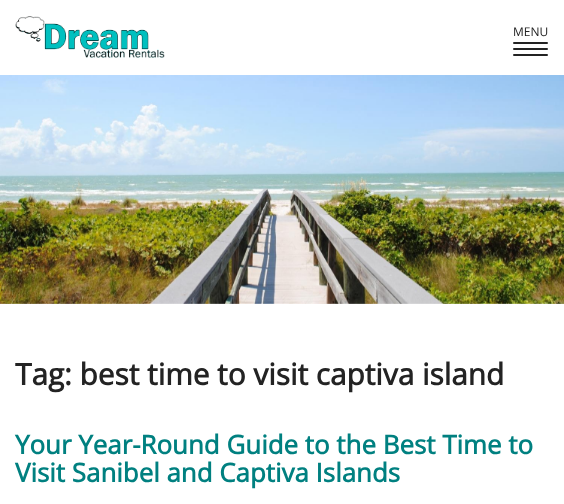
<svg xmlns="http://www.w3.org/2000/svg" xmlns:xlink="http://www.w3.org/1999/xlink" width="564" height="504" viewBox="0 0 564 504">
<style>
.cls-1{font:12px Open Sans;fill:#232323}
.cls-2{font:bold 29.75px Open Sans;fill:#232323}
.cls-3{font:bold 25.9px Open Sans;fill:#008080}
</style>
<rect width="100%" height="100%" fill="#ffffff"/>
<image xlink:href="image0.png" x="15" y="16" width="150" height="42"/>
<rect fill="#232323" x="513" y="42" width="35" height="2" rx="1"/>
<rect fill="#232323" x="513" y="48" width="35" height="2" rx="1"/>
<rect fill="#232323" x="513" y="54" width="35" height="2" rx="1"/>
<image xlink:href="image1.png" x="0" y="75" width="564" height="229"/>
<text class="cls-1" x="513" y="36">MENU</text>
<text class="cls-2" x="15" y="385">Tag: best time to visit captiva island</text>
<text class="cls-3"><tspan x="15" y="454">Your Year-Round Guide to the Best Time to</tspan><tspan x="15" y="482">Visit Sanibel and Captiva Islands</tspan></text>
</svg>
